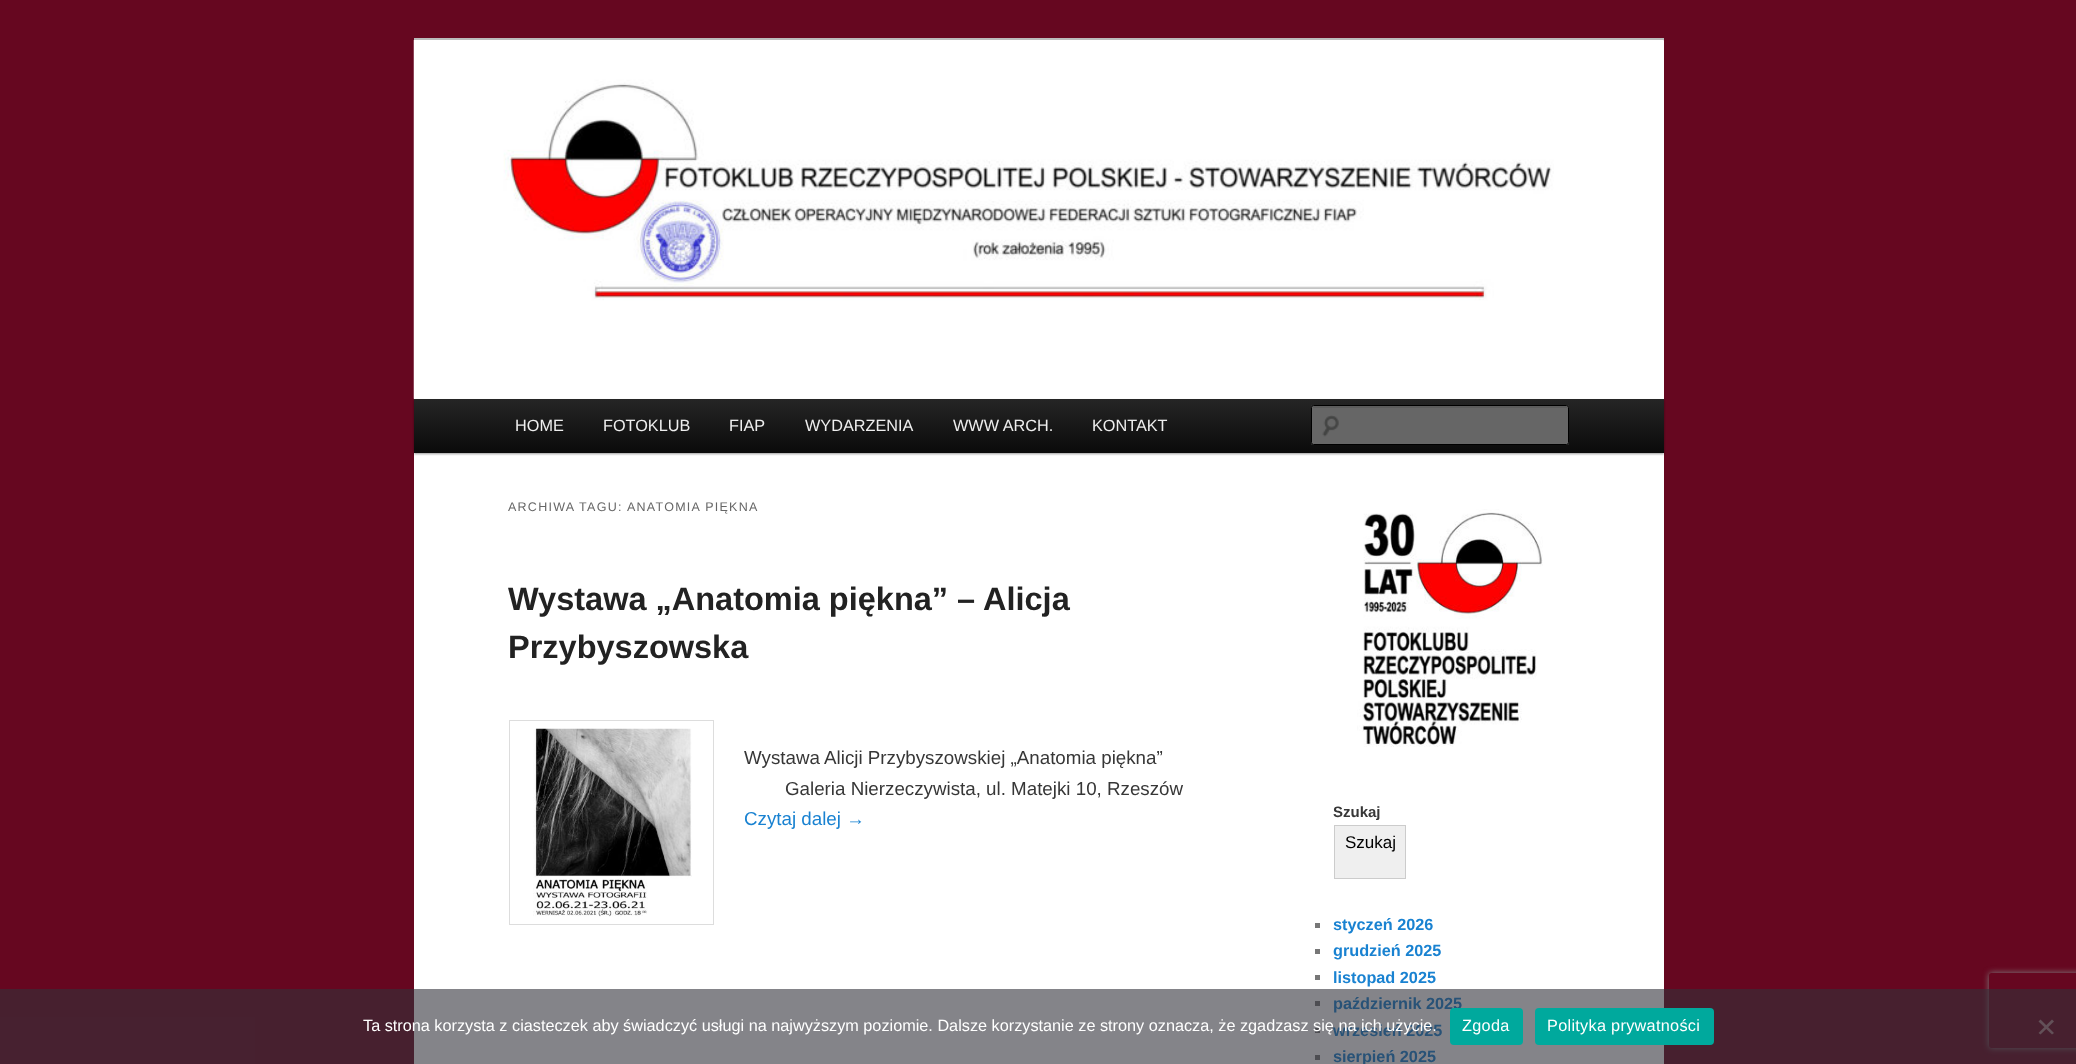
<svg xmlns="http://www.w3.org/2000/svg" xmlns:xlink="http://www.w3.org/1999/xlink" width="2076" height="1064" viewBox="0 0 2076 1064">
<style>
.cls-1{font:16.25px Liberation Sans;fill:#eeeeee}
.cls-2{font:12.5px Liberation Sans;letter-spacing:1.25px;fill:#666666}
.cls-3{font:bold 32.5px Liberation Sans;fill:#222222}
.cls-4{font:18.75px Liberation Sans;fill:#373737}
.cls-5{font:18.75px Liberation Sans;fill:#1982d1}
.cls-6{font:bold 15px Liberation Sans;fill:#373737}
.cls-7{font:17px Liberation Sans;fill:#000000}
.cls-8{font:bold 16.25px Liberation Sans;fill:#1982d1}
.cls-9{font:16.25px Liberation Sans;fill:#ffffff}
.cls-10{font:16.25px Liberation Sans;letter-spacing:0.3px;fill:#ffffff}
</style>
<defs>
<linearGradient id="g1" gradientUnits="userSpaceOnUse" x1="1039" y1="399" x2="1039" y2="453"><stop offset="0" stop-color="#252525"/><stop offset="1" stop-color="#0a0a0a"/></linearGradient>
<clipPath id="clip1"><path d="M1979 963H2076V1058H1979ZM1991.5 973H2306.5C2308 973 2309 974 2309 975.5V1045.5C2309 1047 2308 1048 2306.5 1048H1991.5C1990 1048 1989 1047 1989 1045.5V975.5C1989 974 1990 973 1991.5 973Z" clip-rule="evenodd"/></clipPath>
</defs>
<rect width="100%" height="100%" fill="#660720"/>
<rect fill="#ffffff" x="414" y="41" width="1250" height="1023"/>
<rect fill="#bbbbbb" x="414" y="38" width="1250" height="3"/>
<rect fill="#000000" fill-opacity="0.4" filter="blur(1px)" x="414" y="400" width="1250" height="54"/>
<image xlink:href="image0.png" x="413" y="40" width="1251" height="359"/>
<rect fill="url(#g1)" x="414" y="399" width="1250" height="54"/>
<rect fill="#666666" x="1311" y="405" width="258" height="40" rx="2.5"/>
<image xlink:href="image1.png" x="1322" y="415" width="17" height="22"/>
<path fill="#5c5c5c" d="M1314 408H1566C1567 408 1568 408 1568 409V407C1568 406 1568 406 1567 406H1314C1313 406 1313 406 1313 407V408Z"/>
<rect fill="none" stroke="#000000" x="1311.5" y="405.5" width="257" height="39" rx="2"/>
<rect fill="none" stroke="#dddddd" x="509.5" y="720.5" width="204" height="204"/>
<image xlink:href="image2.png" x="533" y="728" width="159" height="189"/>
<image xlink:href="image3.png" x="1357" y="509" width="186" height="238"/>
<rect fill="#efefef" stroke="#cccccc" x="1334.5" y="825.5" width="71" height="53"/>
<rect fill="#777777" x="1315" y="923" width="5" height="5"/>
<rect fill="#777777" x="1315" y="949" width="5" height="5"/>
<rect fill="#777777" x="1315" y="975" width="5" height="5"/>
<rect fill="#777777" x="1315" y="1001" width="5" height="5"/>
<rect fill="#777777" x="1315" y="1028" width="5" height="5"/>
<rect fill="#777777" x="1315" y="1055" width="5" height="5"/>
<g clip-path="url(#clip1)">
<rect fill="#808080" filter="blur(3px)" x="1989" y="973" width="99" height="75" rx="2.5"/>
</g>
<text class="cls-1" x="515" y="431">HOME</text>
<text class="cls-1" x="603" y="431">FOTOKLUB</text>
<text class="cls-1" x="729" y="431">FIAP</text>
<text class="cls-1" x="805" y="431">WYDARZENIA</text>
<text class="cls-1" x="953" y="431">WWW ARCH.</text>
<text class="cls-1" x="1092" y="431">KONTAKT</text>
<text class="cls-2" x="508" y="511">ARCHIWA TAGU:</text>
<text class="cls-2" x="627" y="511">ANATOMIA PIĘKNA</text>
<text class="cls-3"><tspan x="508" y="610">Wystawa „Anatomia piękna” – Alicja</tspan><tspan x="508" y="658">Przybyszowska</tspan></text>
<text class="cls-4" x="744" y="764">Wystawa Alicji Przybyszowskiej „Anatomia piękna”</text>
<text class="cls-4" x="785" y="795">Galeria Nierzeczywista, ul. Matejki 10, Rzeszów</text>
<text class="cls-5" x="744" y="825">Czytaj dalej →</text>
<text class="cls-6" x="1333" y="817">Szukaj</text>
<text class="cls-7" x="1345" y="848">Szukaj</text>
<text class="cls-8"><tspan x="1333" y="930">styczeń 2026</tspan><tspan x="1333" y="956">grudzień 2025</tspan><tspan x="1333" y="983">listopad 2025</tspan><tspan x="1333" y="1009">październik 2025</tspan><tspan x="1333" y="1036">wrzesień 2025</tspan><tspan x="1333" y="1062">sierpień 2025</tspan></text>
<rect fill="#32323a" fill-opacity="0.6" x="0" y="989" width="2076" height="75"/>
<text class="cls-9" x="363" y="1031">Ta strona korzysta z ciasteczek aby świadczyć usługi na najwyższym poziomie. Dalsze korzystanie ze strony oznacza, że zgadzasz się na ich użycie.</text>
<rect fill="#00a99d" x="1450" y="1008" width="73" height="37" rx="4"/>
<text class="cls-10" x="1462" y="1031">Zgoda</text>
<rect fill="#00a99d" x="1535" y="1008" width="179" height="37" rx="4"/>
<text class="cls-10" x="1547" y="1031">Polityka prywatności</text>
<path fill="#635058" d="M2052 1019.5L2054 1021.5L2040.5 1034.5L2038.5 1033Z"/>
<path fill="#635058" d="M2038.5 1021.5L2040.5 1019.5L2054 1033L2052 1034.5Z"/>
</svg>
